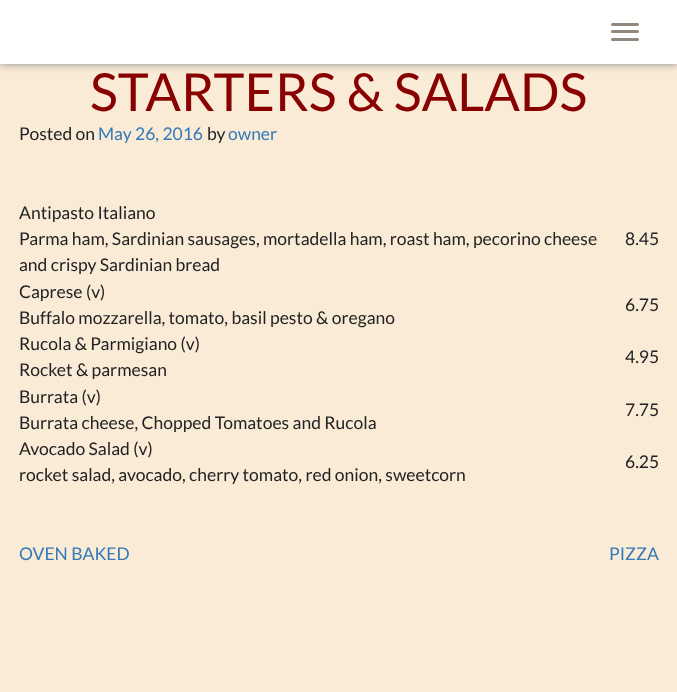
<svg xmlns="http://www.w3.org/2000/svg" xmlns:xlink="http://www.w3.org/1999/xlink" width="677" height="692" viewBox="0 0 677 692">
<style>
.cls-1{font:52.5px Lato;fill:#890000}
.cls-2{font:17.5px Lato;fill:#222222}
.cls-3{font:17.5px Lato;fill:#337ab7}
</style>
<defs>
<clipPath id="clip1"><path d="M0 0H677V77H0ZM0 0H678V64H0Z" clip-rule="evenodd"/></clipPath>
</defs>
<rect width="100%" height="100%" fill="#faebd7"/>
<g clip-path="url(#clip1)">
<rect fill="#888888" filter="blur(4px)" x="0" y="0" width="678" height="64"/>
</g>
<rect fill="#ffffff" fill-opacity="0.98" x="0" y="0" width="677" height="64"/>
<rect fill="#90887c" x="611" y="23" width="28" height="3" rx="1.5"/>
<rect fill="#90887c" x="611" y="30" width="28" height="3" rx="1.5"/>
<rect fill="#90887c" x="611" y="38" width="28" height="3" rx="1.5"/>
<text class="cls-1" x="90" y="111">STARTERS &amp; SALADS</text>
<text class="cls-2" x="19" y="140">Posted on</text>
<text class="cls-3" x="98" y="140">May 26, 2016</text>
<text class="cls-2" x="207" y="140">by</text>
<text class="cls-3" x="228" y="140">owner</text>
<text class="cls-2"><tspan x="19" y="219">Antipasto Italiano</tspan><tspan x="19" y="245">Parma ham, Sardinian sausages, mortadella ham, roast ham, pecorino cheese</tspan><tspan x="19" y="271">and crispy Sardinian bread</tspan></text>
<text class="cls-2" x="625" y="245">8.45</text>
<text class="cls-2"><tspan x="19" y="298">Caprese (v)</tspan><tspan x="19" y="324">Buffalo mozzarella, tomato, basil pesto &amp; oregano</tspan></text>
<text class="cls-2" x="625" y="311">6.75</text>
<text class="cls-2"><tspan x="19" y="350">Rucola &amp; Parmigiano (v)</tspan><tspan x="19" y="376">Rocket &amp; parmesan</tspan></text>
<text class="cls-2" x="625" y="363">4.95</text>
<text class="cls-2"><tspan x="19" y="403">Burrata (v)</tspan><tspan x="19" y="429">Burrata cheese, Chopped Tomatoes and Rucola</tspan></text>
<text class="cls-2" x="625" y="416">7.75</text>
<text class="cls-2"><tspan x="19" y="455">Avocado Salad (v)</tspan><tspan x="19" y="481">rocket salad, avocado, cherry tomato, red onion, sweetcorn</tspan></text>
<text class="cls-2" x="625" y="468">6.25</text>
<text class="cls-3" x="19" y="560">OVEN BAKED</text>
<text class="cls-3" x="609" y="560">PIZZA</text>
</svg>
